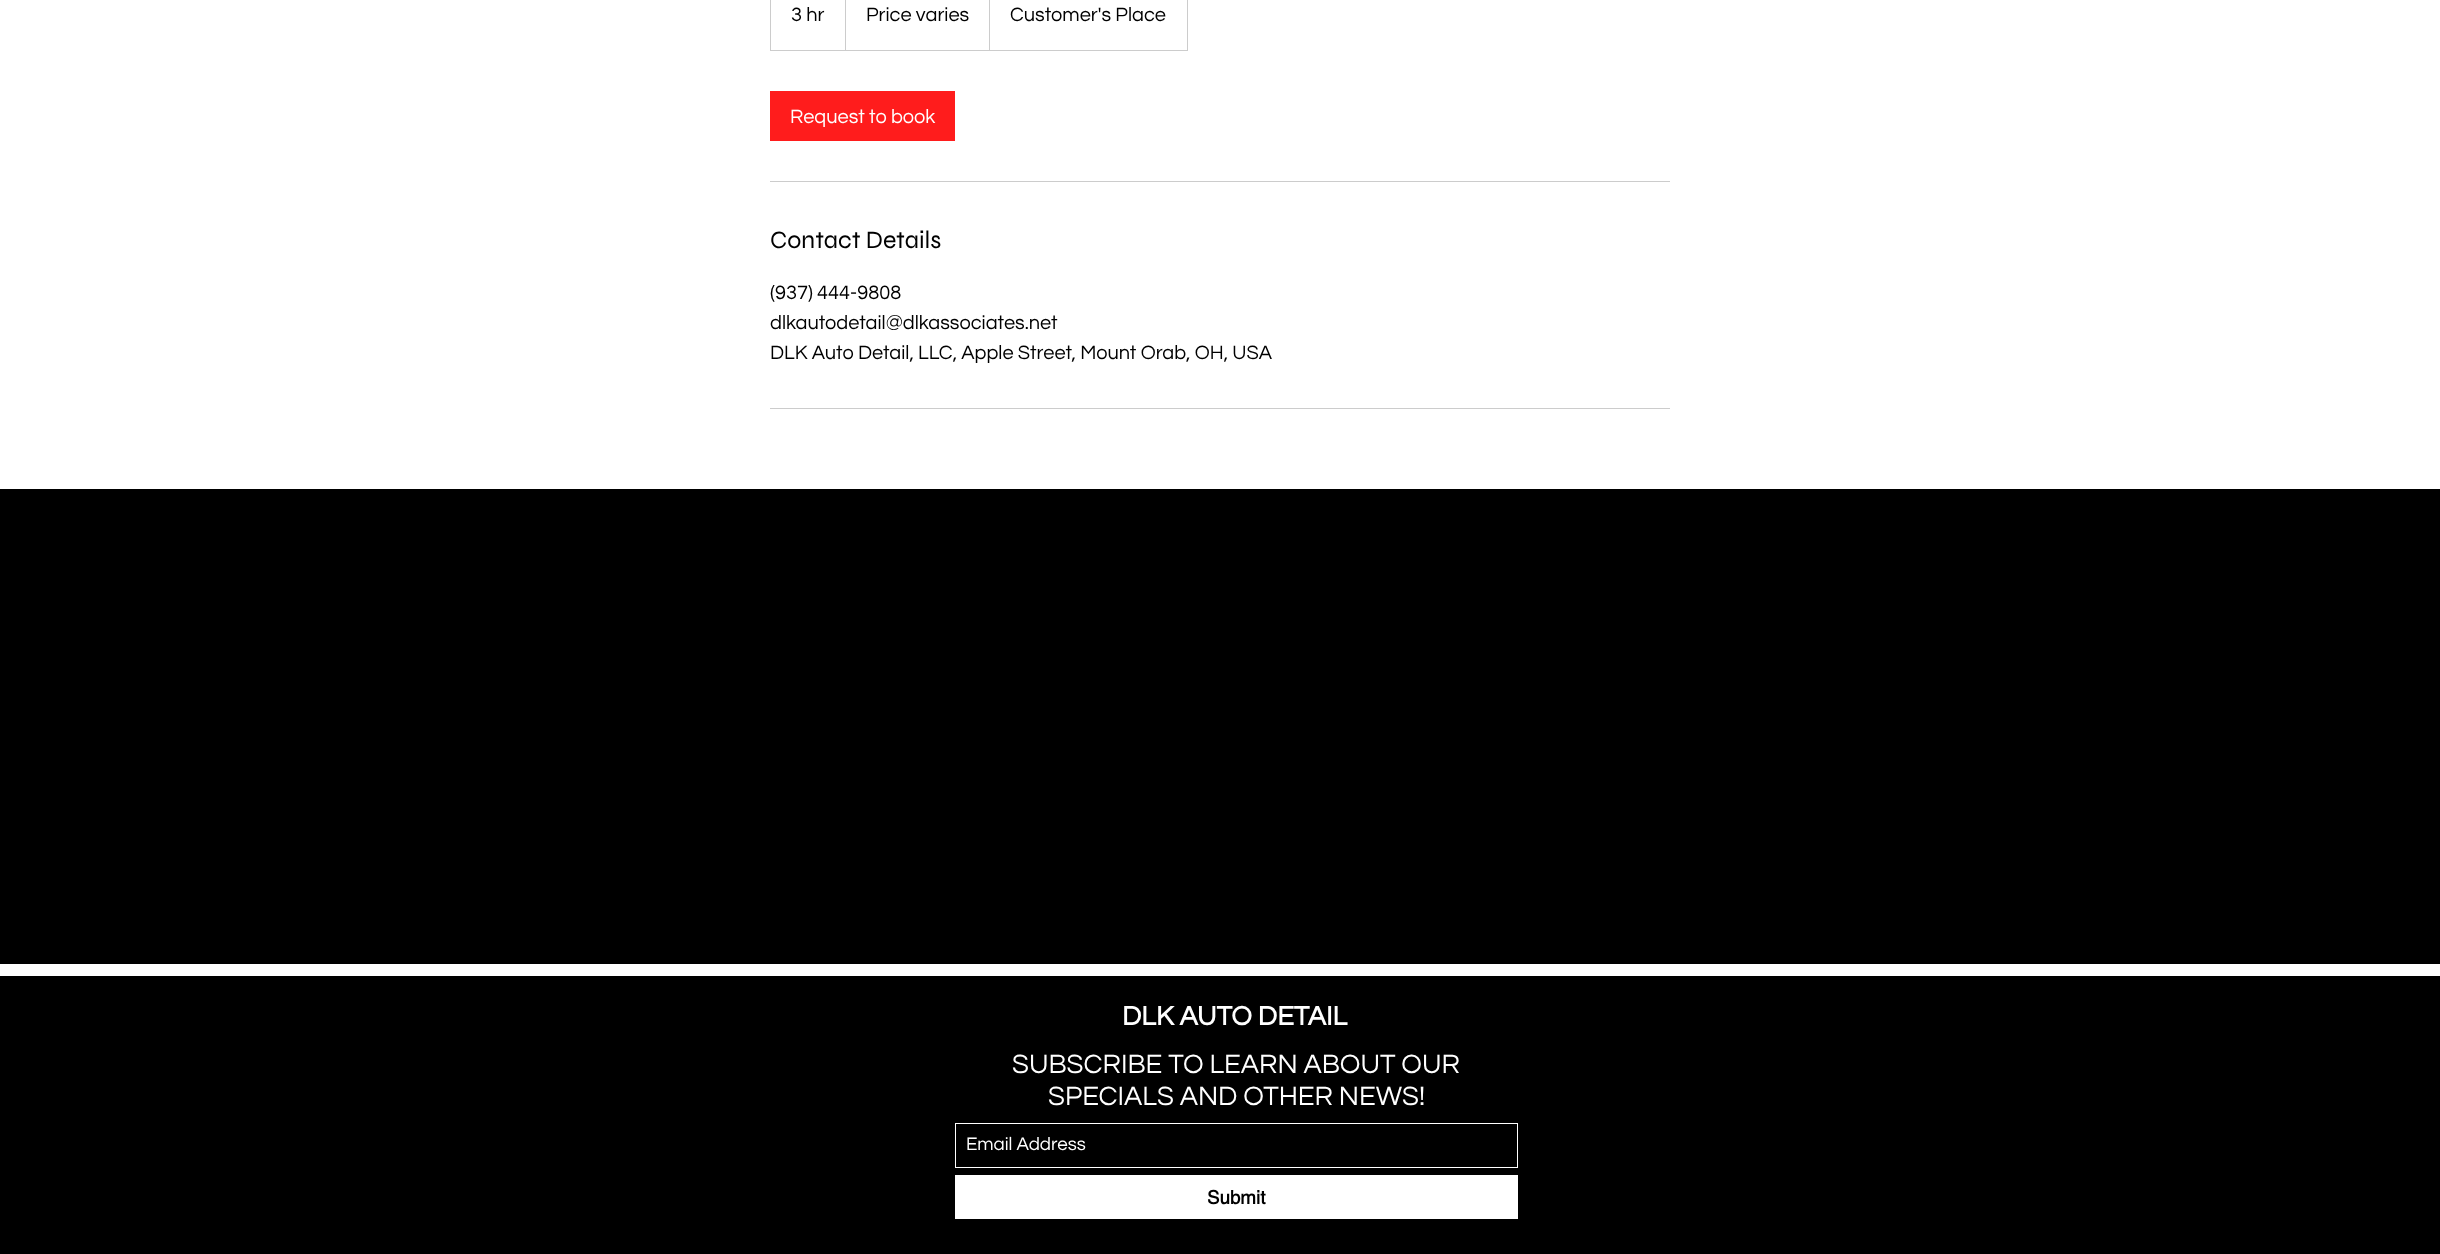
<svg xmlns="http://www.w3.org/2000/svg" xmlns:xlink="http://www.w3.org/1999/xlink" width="2440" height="1254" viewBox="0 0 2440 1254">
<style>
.cls-1{font:20px Questrial;fill:#000000}
.cls-2{font:20px Questrial;fill:#ffffff}
.cls-3{font:25px Syne;fill:#000000}
.cls-4{font:bold 27.5px Questrial;fill:#ffffff}
.cls-5{font:27.5px Questrial;fill:#ffffff}
.cls-6{font:18.75px Questrial;fill:#ffffff}
.cls-7{font:bold 18.75px helvetica;fill:#000000}
</style>
<rect width="100%" height="100%" fill="#ffffff"/>
<rect fill="none" stroke="#cccccc" x="770.5" y="-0.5" width="417" height="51"/>
<path fill="#cccccc" d="M845 50V-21L846-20V50Z"/>
<path fill="#cccccc" d="M989 50V-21L990-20V50Z"/>
<rect fill="#ff1c1c" x="770" y="91" width="185" height="50"/>
<rect fill="#cccccc" x="770" y="181" width="900" height="1"/>
<rect fill="#cccccc" x="770" y="408" width="900" height="1"/>
<rect fill="#000000" x="0" y="489" width="2440" height="475"/>
<rect fill="#000000" x="0" y="976" width="2440" height="278"/>
<rect fill="none" stroke="#ffffff" x="955.5" y="1123.5" width="562" height="44"/>
<rect fill="#ffffff" x="955" y="1175" width="563" height="44"/>
<text class="cls-1" x="791" y="21">3 hr</text>
<text class="cls-1" x="866" y="21">Price varies</text>
<text class="cls-1" x="1010" y="21">Customer's Place</text>
<text class="cls-2" x="790" y="123">Request to book</text>
<text class="cls-3" x="770" y="248">Contact Details</text>
<text class="cls-1"><tspan x="770" y="299">(937) 444-9808</tspan><tspan x="770" y="329">dlkautodetail@dlkassociates.net</tspan><tspan x="770" y="359">DLK Auto Detail, LLC, Apple Street, Mount Orab, OH, USA</tspan></text>
<text class="cls-4" x="1122" y="1025">DLK AUTO DETAIL</text>
<text class="cls-5" x="1012" y="1073">SUBSCRIBE TO LEARN ABOUT OUR</text>
<text class="cls-5" x="1048" y="1105">SPECIALS AND OTHER NEWS!</text>
<text class="cls-6" x="966" y="1150">Email Address</text>
<text class="cls-7" x="1207" y="1204">Submit</text>
</svg>
